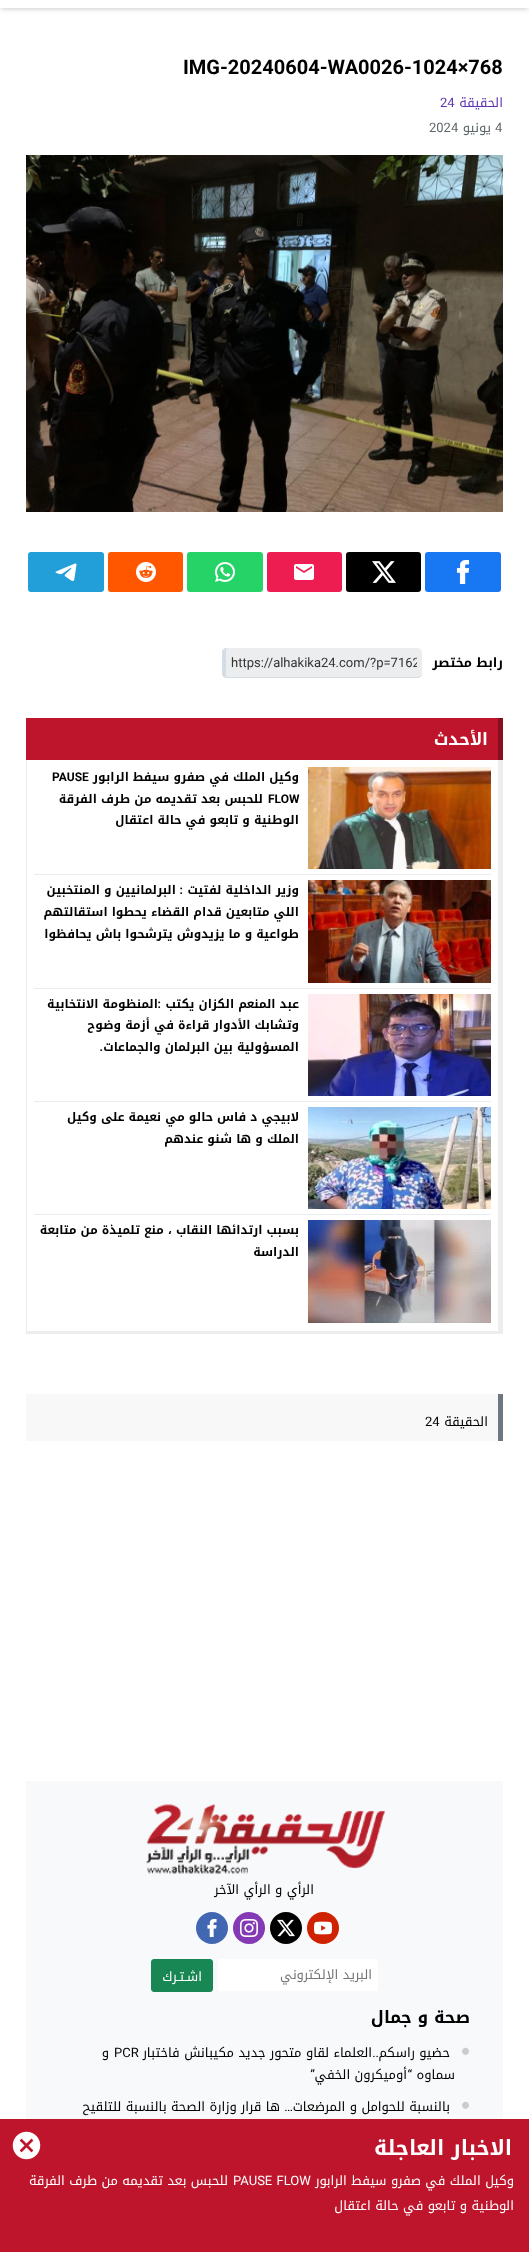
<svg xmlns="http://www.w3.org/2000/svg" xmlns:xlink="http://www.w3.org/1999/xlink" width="529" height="2252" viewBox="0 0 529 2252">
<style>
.cls-1{font:bold 20px Roboto;fill:#000000}
.cls-2{font:13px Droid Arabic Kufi;direction:rtl;fill:#5e35b1}
.cls-3{font:13px Roboto;fill:#5e35b1}
.cls-4{font:13px Roboto;fill:#5d6769}
.cls-5{font:13px Droid Arabic Kufi;direction:rtl;fill:#5d6769}
.cls-6{font:bold 13px Droid Arabic Kufi;direction:rtl;fill:#000000}
.cls-7{font:13px Roboto;fill:#333333}
.cls-8{font:bold 17px Droid Arabic Kufi;direction:rtl;fill:#ffffff}
.cls-9{font:bold 12px Droid Arabic Kufi;direction:rtl;fill:#000000}
.cls-10{font:bold 12px Roboto;fill:#000000}
.cls-11{font:bold 12px Roboto;direction:rtl;fill:#000000}
.cls-12{font:13px Droid Arabic Kufi;direction:rtl;fill:#000000}
.cls-13{font:13px Roboto;fill:#000000}
.cls-14{font:13px Droid Arabic Kufi;direction:rtl;fill:#757575}
.cls-15{font:13px Droid Arabic Kufi;direction:rtl;fill:#ffffff}
.cls-16{font:bold 17px Droid Arabic Kufi;direction:rtl;fill:#000000}
.cls-17{font:26px Liberation Sans;fill:#cccccc}
.cls-18{font:13px Roboto;direction:rtl;fill:#000000}
.cls-19{font:bold 21px Droid Arabic Kufi;direction:rtl;fill:#ffffff}
.cls-20{font:13px Roboto;fill:#ffffff}
</style>
<defs>
<clipPath id="clip1"><rect x="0" y="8" width="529" height="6"/></clipPath>
<clipPath id="clip2"><rect x="231" y="653" width="186" height="19"/></clipPath>
</defs>
<rect width="100%" height="100%" fill="#ffffff"/>
<g clip-path="url(#clip1)">
<rect fill="#cccccc" filter="blur(2.5px)" x="1" y="-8" width="527" height="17"/>
</g>
<image xlink:href="image0.png" x="26" y="155" width="477" height="357"/>
<rect fill="#1877f2" stroke="#ffffff" stroke-width="2" x="424" y="551" width="78" height="42" rx="4"/>
<image xlink:href="image1.png" x="456" y="560" width="14" height="24"/>
<rect fill="#000000" stroke="#ffffff" stroke-width="2" x="345" y="551" width="77" height="42" rx="4"/>
<image xlink:href="image2.png" x="372" y="561" width="24" height="22"/>
<rect fill="#ee1d51" stroke="#ffffff" stroke-width="2" x="266" y="551" width="77" height="42" rx="4"/>
<image xlink:href="image3.png" x="294" y="564" width="20" height="16"/>
<rect fill="#25d366" stroke="#ffffff" stroke-width="2" x="186" y="551" width="78" height="42" rx="4"/>
<image xlink:href="image4.png" x="215" y="562" width="20" height="20"/>
<rect fill="#ff5700" stroke="#ffffff" stroke-width="2" x="107" y="551" width="77" height="42" rx="4"/>
<image xlink:href="image5.png" x="136" y="562" width="20" height="20"/>
<rect fill="#229ed9" stroke="#ffffff" stroke-width="2" x="27" y="551" width="78" height="42" rx="4"/>
<image xlink:href="image6.png" x="55" y="563" width="22" height="18"/>
<rect fill="#ebedef" x="222" y="648" width="200" height="30" rx="5"/>
<path fill="#d4dce4" fill-rule="evenodd" d="M227 648H417C420 648 422 650 422 653V673C422 676 420 678 417 678H227C224 678 222 676 222 673V653C222 650 224 648 227 648ZM227 648H417C420 648 422 650 422 653V673C422 675 420 677 417 677H227C226 677 226 675 226 673V653C226 650 226 648 227 648Z"/>
<rect fill="#bf152c" x="26" y="718" width="472" height="42"/>
<rect fill="#860f1f" x="498" y="718" width="5" height="42"/>
<rect fill="#ebedef" x="498" y="760" width="5" height="574"/>
<rect fill="#ebedef" x="26" y="1331" width="477" height="3"/>
<rect fill="#ebedef" x="26" y="760" width="1" height="574"/>
<rect fill="#e9edf0" x="34" y="874" width="457" height="1"/>
<image xlink:href="image7.png" x="308" y="767" width="183" height="102"/>
<rect fill="#e9edf0" x="34" y="988" width="457" height="1"/>
<image xlink:href="image8.png" x="308" y="880" width="183" height="103"/>
<rect fill="#e9edf0" x="34" y="1101" width="457" height="1"/>
<image xlink:href="image9.png" x="308" y="994" width="183" height="102"/>
<rect fill="#e9edf0" x="34" y="1214" width="457" height="1"/>
<image xlink:href="image10.png" x="308" y="1107" width="183" height="102"/>
<image xlink:href="image11.png" x="308" y="1220" width="183" height="103"/>
<rect fill="#f8f8f8" x="26" y="1394" width="472" height="47"/>
<rect fill="#6c7781" x="498" y="1394" width="5" height="47"/>
<rect fill="#f8f9fa" x="26" y="1781" width="477" height="338"/>
<image xlink:href="image12.png" x="146" y="1804" width="239" height="70"/>
<circle fill="#cf2200" cx="323" cy="1928" r="16"/>
<image xlink:href="image13.png" x="314" y="1921" width="18" height="14"/>
<circle fill="#000000" cx="286" cy="1928" r="16"/>
<image xlink:href="image14.png" x="277" y="1919" width="18" height="18"/>
<circle fill="#833ab4" cx="249" cy="1928" r="16"/>
<image xlink:href="image15.png" x="240" y="1919" width="18" height="18"/>
<circle fill="#4267b2" cx="212" cy="1928" r="16"/>
<image xlink:href="image16.png" x="207" y="1919" width="10" height="18"/>
<rect fill="#ffffff" x="218" y="1959" width="160" height="32" rx="2"/>
<rect fill="#198754" stroke="#198754" x="151.5" y="1959.5" width="61" height="32" rx="2.5"/>
<rect fill="#bf152c" x="0" y="2119" width="529" height="133"/>
<image xlink:href="image17.png" x="12" y="2131" width="29" height="29"/>
<text class="cls-1" x="183" y="74">IMG-20240604-WA0026-1024×768</text>
<text class="cls-2" x="503" y="107">الحقيقة</text>
<text class="cls-3" x="440" y="107">24</text>
<text class="cls-4" x="495" y="132">4</text>
<text class="cls-5" x="491" y="132">يونيو</text>
<text class="cls-4" x="429" y="132">2024</text>
<text class="cls-6" x="503" y="667">رابط مختصر</text>
<g clip-path="url(#clip2)">
<text class="cls-7" x="231" y="667">https://alhakika24.com/?p=7162</text>
</g>
<text class="cls-8" x="488" y="745">الأحدث</text>
<text class="cls-9" x="299" y="781">وكيل الملك في صفرو سيفط الرابور</text>
<text class="cls-10" x="52" y="781">PAUSE</text>
<text class="cls-10" x="268" y="803">FLOW</text>
<text class="cls-9" x="263" y="803">للحبس بعد تقديمه من طرف الفرقة</text>
<text class="cls-9" x="299" y="824">الوطنية و تابعو في حالة اعتقال</text>
<text class="cls-9" x="299" y="894">وزير الداخلية لفتيت</text>
<text class="cls-11" x="183" y="894">:</text>
<text class="cls-9" x="176" y="894">البرلمانيين و المنتخبين</text>
<text class="cls-9"><tspan x="299" y="916">اللي متابعين قدام القضاء يحطوا استقالتهم</tspan><tspan x="299" y="938">طواعية و ما يزيدوش يترشحوا باش يحافظوا</tspan></text>
<text class="cls-9" x="299" y="1008">عبد المنعم الكزان يكتب</text>
<text class="cls-11" x="161" y="1008">:</text>
<text class="cls-9" x="158" y="1008">المنظومة الانتخابية</text>
<text class="cls-9"><tspan x="299" y="1029">وتشابك الأدوار قراءة في أزمة وضوح</tspan><tspan x="299" y="1051">المسؤولية بين البرلمان والجماعات</tspan></text>
<text class="cls-11" x="103" y="1051">.</text>
<text class="cls-9"><tspan x="299" y="1121">لابيجي د فاس حالو مي نعيمة على وكيل</tspan><tspan x="299" y="1143">الملك و ها شنو عندهم</tspan></text>
<text class="cls-9"><tspan x="299" y="1234">بسبب ارتدائها النقاب ، منع تلميذة من متابعة</tspan><tspan x="299" y="1256">الدراسة</tspan></text>
<text class="cls-12" x="488" y="1426">الحقيقة</text>
<text class="cls-13" x="425" y="1426">24</text>
<text class="cls-12" x="314" y="1894">الرأي و الرأي الآخر</text>
<text class="cls-14" x="372" y="1979">البريد الإلكتروني</text>
<text class="cls-15" x="202" y="1981">اشـتـرك</text>
<text class="cls-16" x="470" y="2023">صحة و جمال</text>
<text class="cls-17" x="461" y="2060">•</text>
<text class="cls-12" x="450" y="2057">حضيو راسكم</text>
<text class="cls-18" x="379" y="2057">..</text>
<text class="cls-12" x="372" y="2057">العلماء لقاو متحور جديد مكيبانش فاختبار</text>
<text class="cls-13" x="114" y="2057">PCR</text>
<text class="cls-12" x="109" y="2057">و</text>
<text class="cls-12" x="455" y="2079">سماوه</text>
<text class="cls-18" x="412" y="2079">“</text>
<text class="cls-12" x="407" y="2079">أوميكرون الخفي</text>
<text class="cls-18" x="315" y="2079">”</text>
<text class="cls-17" x="461" y="2114">•</text>
<text class="cls-12" x="450" y="2111">بالنسبة للحوامل و المرضعات</text>
<text class="cls-12" x="280" y="2111">ها قرار وزارة الصحة بالنسبة للتلقيح</text>
<text class="cls-18" x="293" y="2111">…</text>
<text class="cls-19" x="512" y="2155">الاخبار العاجلة</text>
<text class="cls-15" x="514" y="2185">وكيل الملك في صفرو سيفط الرابور</text>
<text class="cls-20" x="233" y="2185" word-spacing="1">PAUSE FLOW</text>
<text class="cls-15" x="228" y="2185">للحبس بعد تقديمه من طرف الفرقة</text>
<text class="cls-15" x="514" y="2210">الوطنية و تابعو في حالة اعتقال</text>
</svg>
